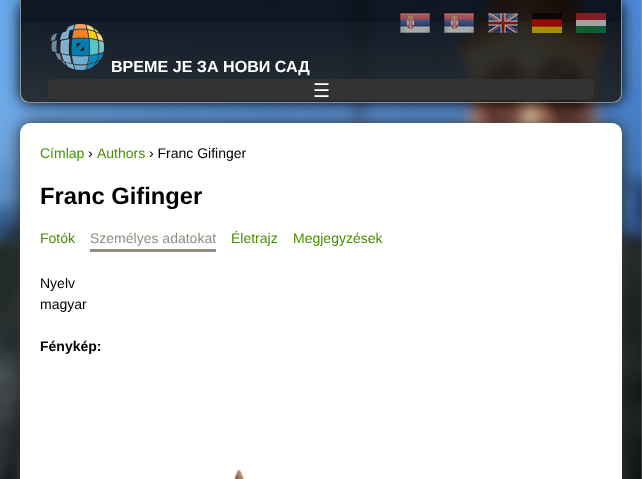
<svg xmlns="http://www.w3.org/2000/svg" xmlns:xlink="http://www.w3.org/1999/xlink" width="642" height="479" viewBox="0 0 642 479">
<style>
.cls-1{font:bold 16.1px Liberation Sans;fill:#ffffff}
.cls-2{font:19px DejaVu Sans;fill:#ffffff}
.cls-3{font:14px Liberation Sans;fill:#479000}
.cls-4{font:14px Liberation Sans;fill:#000000}
.cls-5{font:bold 23.75px Liberation Sans;fill:#000000}
.cls-6{font:14px Liberation Sans;fill:#928b81}
.cls-7{font:bold 14px Liberation Sans;fill:#000000}
</style>
<defs>
<clipPath id="clip1"><path d="M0 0H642V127H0ZM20 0H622V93C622 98.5 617.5 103 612 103H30C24.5 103 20 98.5 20 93Z" clip-rule="evenodd"/></clipPath>
<clipPath id="clip2"><path d="M20 0H622V93C622 98.5 617.5 103 612 103H30C24.5 103 20 98.5 20 93Z"/></clipPath>
<linearGradient id="g1" gradientUnits="userSpaceOnUse" x1="321" y1="0" x2="321" y2="102"><stop offset="0" stop-color="#ffffff" stop-opacity="0"/><stop offset="1" stop-color="#ffffff" stop-opacity="0.1"/></linearGradient>
</defs>
<rect width="100%" height="100%" fill="#ffffff"/>
<image xlink:href="image0.png" x="0" y="0" width="642" height="479"/>
<g clip-path="url(#clip1)">
<rect fill="#000000" filter="blur(7.5px)" x="20" y="0" width="602" height="103" rx="10"/>
</g>
<path fill="#000000" fill-opacity="0.85" d="M20 0H622V93C622 98.5 617.5 103 612 103H30C24.5 103 20 98.5 20 93Z"/>
<g clip-path="url(#clip2)">
<rect fill="url(#g1)" x="20" y="22" width="602" height="80"/>
</g>
<path fill="#ffffff" fill-opacity="0.5" fill-rule="evenodd" d="M20 0H622V93C622 99 618 103 612 103H30C24 103 20 99 20 93ZM21 0H621V93C621 98 617 102 612 102H30C25 102 21 98 21 93Z"/>
<image xlink:href="image1.png" x="51" y="24" width="53" height="46"/>
<image xlink:href="image2.png" x="400" y="13" width="30" height="20"/>
<image xlink:href="image3.png" x="444" y="13" width="30" height="20"/>
<image xlink:href="image4.png" x="488" y="13" width="30" height="20"/>
<image xlink:href="image5.png" x="532" y="13" width="30" height="20"/>
<image xlink:href="image6.png" x="576" y="13" width="30" height="20"/>
<rect fill="#333333" x="48" y="79" width="546" height="21" rx="5"/>
<rect fill="#333333" filter="blur(7.5px)" x="20" y="123" width="602" height="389" rx="10"/>
<rect fill="#ffffff" x="20" y="123" width="602" height="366" rx="10"/>
<rect fill="#928b81" x="90" y="249" width="126" height="3"/>
<image xlink:href="image7.png" x="234" y="469" width="11" height="10"/>
<text class="cls-1" x="111" y="72">ВРЕМЕ ЈЕ ЗА НОВИ САД</text>
<text class="cls-2" x="313" y="97">☰</text>
<text class="cls-3" x="40" y="158">Címlap</text>
<text class="cls-4" x="88" y="158">›</text>
<text class="cls-3" x="97" y="158">Authors</text>
<text class="cls-4" x="149" y="158">› Franc Gifinger</text>
<text class="cls-5" x="40" y="204">Franc Gifinger</text>
<text class="cls-3" x="40" y="243">Fotók</text>
<text class="cls-6" x="90" y="243">Személyes adatokat</text>
<text class="cls-3" x="231" y="243">Életrajz</text>
<text class="cls-3" x="293" y="243">Megjegyzések</text>
<text class="cls-4"><tspan x="40" y="288">Nyelv</tspan><tspan x="40" y="309">magyar</tspan></text>
<text class="cls-7" x="40" y="351">Fénykép:</text>
</svg>
